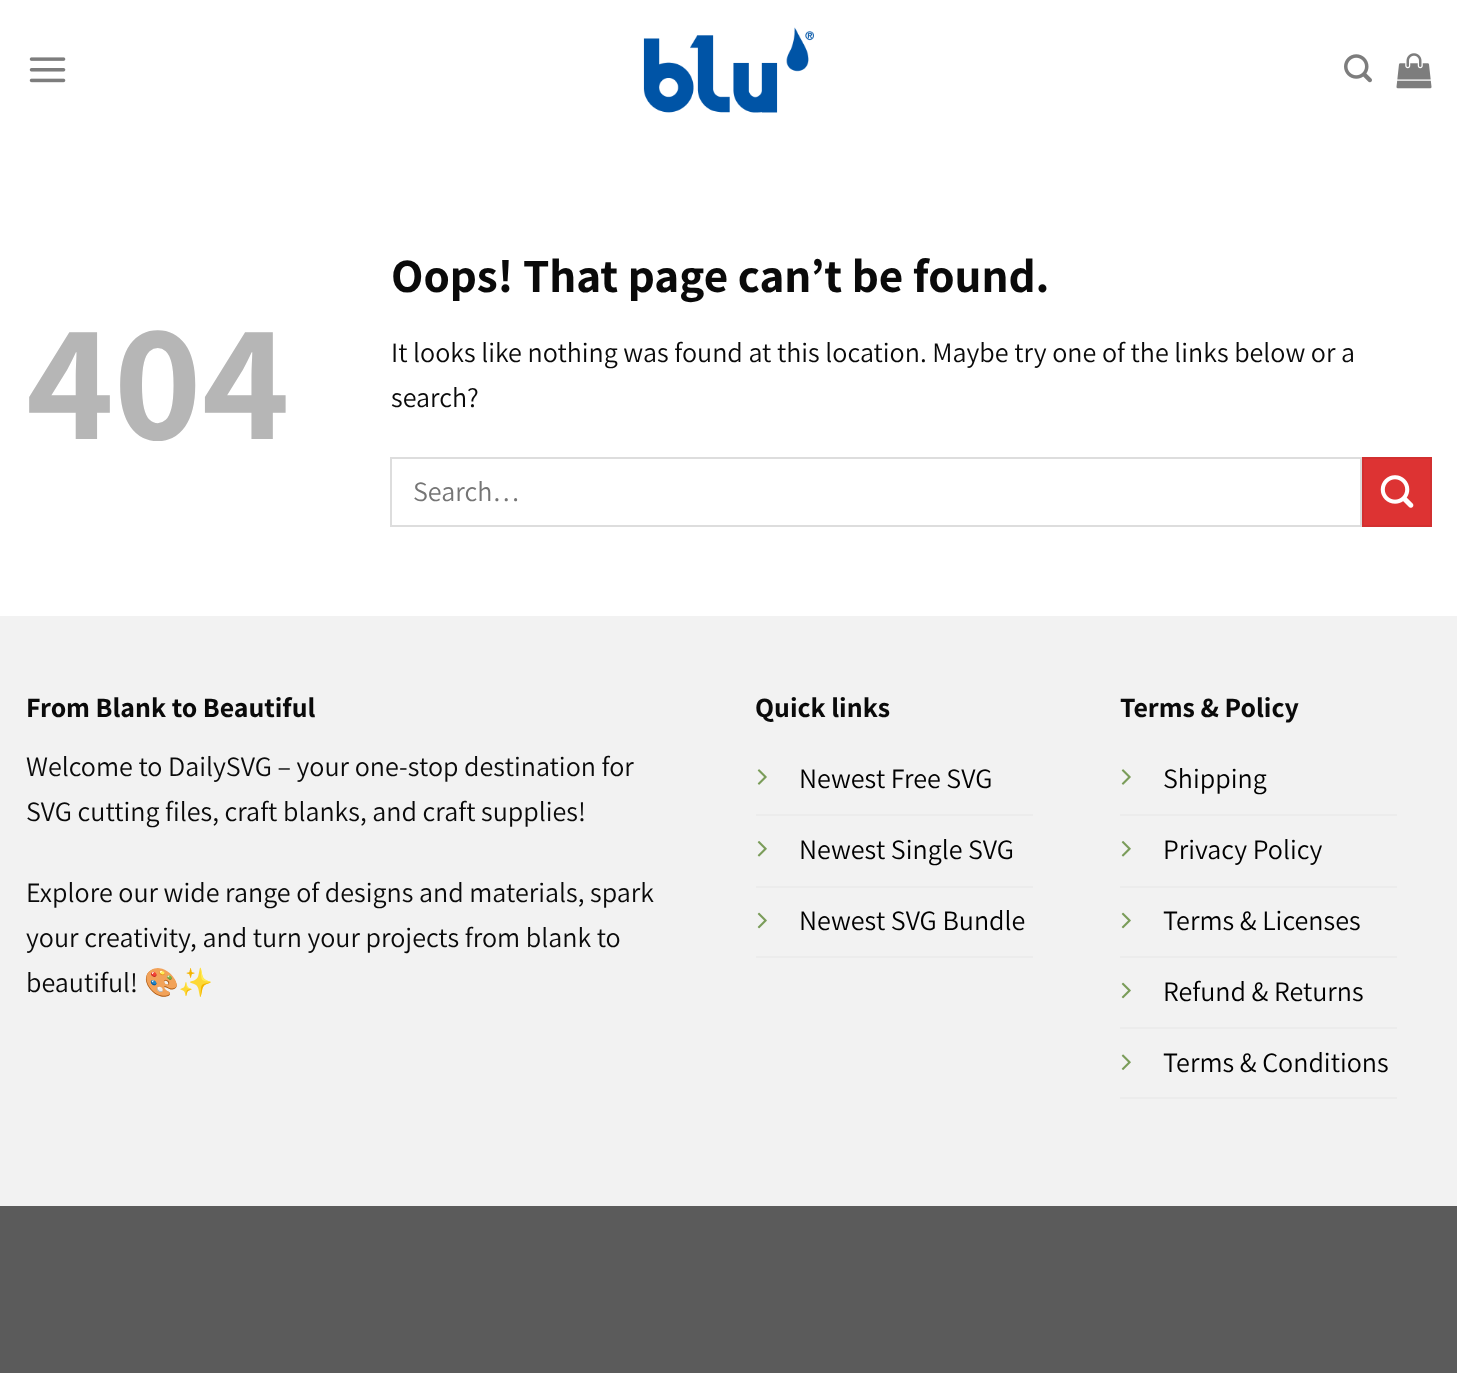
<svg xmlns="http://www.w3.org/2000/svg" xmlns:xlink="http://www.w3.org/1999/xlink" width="1457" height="1373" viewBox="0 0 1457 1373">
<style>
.cls-1{font:bold 168px Assistant;fill:#b6b6b6}
.cls-2{font:bold 47.6px Assistant;fill:#0a0a0a}
.cls-3{font:28px Assistant;fill:#0a0a0a}
.cls-4{font:28px Assistant;fill:#757575}
.cls-5{font:bold 28px Assistant;fill:#0a0a0a}
.cls-6{font:28px Noto Color Emoji;fill:#0a0a0a}
.cls-7{font:28px Assistant;fill:#000000}
</style>
<rect width="100%" height="100%" fill="#5b5b5b"/>
<rect fill="#ffffff" x="0" y="0" width="1457" height="616"/>
<image xlink:href="image0.png" x="29" y="57" width="37" height="26"/>
<image xlink:href="image1.png" x="643" y="27" width="171" height="86"/>
<image xlink:href="image2.png" x="1344" y="54" width="28" height="29"/>
<image xlink:href="image3.png" x="1396" y="53" width="36" height="36"/>
<rect fill="none" stroke="#dddddd" stroke-width="2" x="391" y="458" width="970" height="68"/>
<rect fill="#dd3333" stroke="#d23030" stroke-width="2" x="1363" y="458" width="68" height="68"/>
<image xlink:href="image4.png" x="1380" y="475" width="34" height="33"/>
<rect fill="#f2f2f2" x="0" y="616" width="1457" height="590"/>
<rect fill="#ececec" x="756" y="814" width="277" height="2"/>
<image xlink:href="image5.png" x="757" y="769" width="10" height="16"/>
<rect fill="#ececec" x="756" y="886" width="277" height="2"/>
<image xlink:href="image6.png" x="757" y="841" width="10" height="16"/>
<rect fill="#ececec" x="756" y="956" width="277" height="2"/>
<image xlink:href="image7.png" x="757" y="912" width="10" height="17"/>
<rect fill="#ececec" x="1120" y="814" width="277" height="2"/>
<image xlink:href="image5.png" x="1121" y="769" width="10" height="16"/>
<rect fill="#ececec" x="1120" y="886" width="277" height="2"/>
<image xlink:href="image6.png" x="1121" y="841" width="10" height="16"/>
<rect fill="#ececec" x="1120" y="956" width="277" height="2"/>
<image xlink:href="image7.png" x="1121" y="912" width="10" height="17"/>
<rect fill="#ececec" x="1120" y="1027" width="277" height="2"/>
<image xlink:href="image7.png" x="1121" y="982" width="10" height="17"/>
<rect fill="#ececec" x="1120" y="1097" width="277" height="2"/>
<image xlink:href="image8.png" x="1121" y="1054" width="10" height="16"/>
<text class="cls-1" x="26" y="439">404</text>
<text class="cls-2" x="391" y="292">Oops! That page can’t be found.</text>
<text class="cls-3"><tspan x="391" y="362">It looks like nothing was found at this location. Maybe try one of the links below or a</tspan><tspan x="391" y="407">search?</tspan></text>
<text class="cls-4" x="413" y="501">Search…</text>
<text class="cls-5" x="26" y="717">From Blank to Beautiful</text>
<text class="cls-3"><tspan x="26" y="776">Welcome to DailySVG – your one-stop destination for</tspan><tspan x="26" y="821">SVG cutting files, craft blanks, and craft supplies!</tspan></text>
<text class="cls-3"><tspan x="26" y="902">Explore our wide range of designs and materials, spark</tspan><tspan x="26" y="947">your creativity, and turn your projects from blank to</tspan><tspan x="26" y="992">beautiful!</tspan></text>
<text class="cls-6" x="144" y="992">🎨✨</text>
<text class="cls-5" x="755" y="717">Quick links</text>
<text class="cls-7" x="799" y="788">Newest Free SVG</text>
<text class="cls-7" x="799" y="859">Newest Single SVG</text>
<text class="cls-7" x="799" y="930">Newest SVG Bundle</text>
<text class="cls-5" x="1120" y="717">Terms &amp; Policy</text>
<text class="cls-7" x="1163" y="788">Shipping</text>
<text class="cls-7" x="1163" y="859">Privacy Policy</text>
<text class="cls-7" x="1163" y="930">Terms &amp; Licenses</text>
<text class="cls-7" x="1163" y="1001">Refund &amp; Returns</text>
<text class="cls-7" x="1163" y="1072">Terms &amp; Conditions</text>
</svg>
